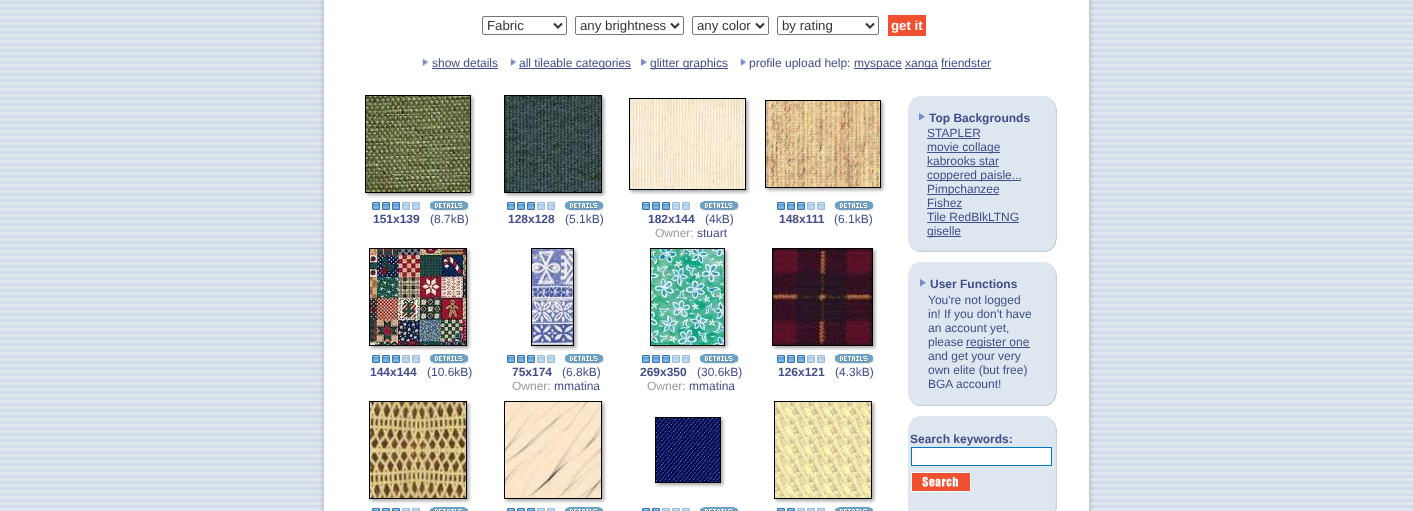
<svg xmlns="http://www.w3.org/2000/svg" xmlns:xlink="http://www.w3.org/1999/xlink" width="1413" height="511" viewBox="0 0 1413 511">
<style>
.cls-1{font:13.25px Liberation Sans;fill:#333333}
.cls-2{font:bold 13.25px Liberation Sans;fill:#ffffff}
.cls-3{font:12px Liberation Sans;fill:#424d89}
.cls-4{font:bold 12px Liberation Sans;fill:#424d89}
.cls-5{font:12px Liberation Sans;fill:#999999}
</style>
<rect width="100%" height="100%" fill="#ffffff"/>
<image xlink:href="image0.png" x="0" y="0" width="1413" height="511"/>
<image xlink:href="image1.png" x="319" y="0" width="28" height="511"/>
<rect fill="#ffffff" x="347" y="0" width="719" height="511"/>
<rect fill="none" stroke="#767676" x="482.5" y="16.5" width="84" height="18" rx="1.5"/>
<path fill="none" stroke="#333333" stroke-width="2" d="M554 23.5L558 27.5L562 23.5"/>
<rect fill="none" stroke="#767676" x="575.5" y="16.5" width="108" height="18" rx="1.5"/>
<path fill="none" stroke="#333333" stroke-width="2" d="M671 23.5L675 27.5L679 23.5"/>
<rect fill="none" stroke="#767676" x="692.5" y="16.5" width="76" height="18" rx="1.5"/>
<path fill="none" stroke="#333333" stroke-width="2" d="M756 23.5L760 27.5L764 23.5"/>
<rect fill="none" stroke="#767676" x="777.5" y="16.5" width="101" height="18" rx="1.5"/>
<path fill="none" stroke="#333333" stroke-width="2" d="M866 23.5L870 27.5L874 23.5"/>
<rect fill="#f05030" x="888" y="15" width="38" height="21"/>
<image xlink:href="image2.png" x="422" y="58" width="6" height="8"/>
<rect fill="#424d89" x="432" y="68" width="66" height="1"/>
<image xlink:href="image2.png" x="510" y="58" width="6" height="8"/>
<rect fill="#424d89" x="519" y="68" width="112" height="1"/>
<image xlink:href="image3.png" x="641" y="58" width="6" height="8"/>
<rect fill="#424d89" x="650" y="68" width="78" height="1"/>
<image xlink:href="image2.png" x="740" y="58" width="6" height="8"/>
<rect fill="#424d89" x="854" y="68" width="48" height="1"/>
<rect fill="#424d89" x="905" y="68" width="33" height="1"/>
<rect fill="#424d89" x="941" y="68" width="50" height="1"/>
<rect fill="none" stroke="#000000" x="365.5" y="95.5" width="105" height="97"/>
<image xlink:href="image4.png" x="366" y="96" width="104" height="96"/>
<image xlink:href="image5.png" x="471" y="95" width="5" height="8"/>
<image xlink:href="image6.png" x="471" y="103" width="5" height="90"/>
<image xlink:href="image7.png" x="365" y="193" width="8" height="5"/>
<image xlink:href="image8.png" x="373" y="193" width="98" height="5"/>
<image xlink:href="image9.png" x="471" y="193" width="5" height="5"/>
<image xlink:href="image10.png" x="372" y="202" width="8" height="8"/>
<image xlink:href="image10.png" x="382" y="202" width="8" height="8"/>
<image xlink:href="image10.png" x="392" y="202" width="8" height="8"/>
<image xlink:href="image11.png" x="402" y="202" width="8" height="8"/>
<image xlink:href="image11.png" x="412" y="202" width="8" height="8"/>
<image xlink:href="image12.png" x="430" y="201" width="39" height="10"/>
<rect fill="none" stroke="#000000" x="504.5" y="95.5" width="97" height="97"/>
<image xlink:href="image13.png" x="505" y="96" width="96" height="96"/>
<image xlink:href="image5.png" x="602" y="95" width="5" height="8"/>
<image xlink:href="image6.png" x="602" y="103" width="5" height="90"/>
<image xlink:href="image7.png" x="504" y="193" width="8" height="5"/>
<image xlink:href="image14.png" x="512" y="193" width="90" height="5"/>
<image xlink:href="image9.png" x="602" y="193" width="5" height="5"/>
<image xlink:href="image10.png" x="507" y="202" width="8" height="8"/>
<image xlink:href="image10.png" x="517" y="202" width="8" height="8"/>
<image xlink:href="image10.png" x="527" y="202" width="8" height="8"/>
<image xlink:href="image11.png" x="537" y="202" width="8" height="8"/>
<image xlink:href="image11.png" x="547" y="202" width="8" height="8"/>
<image xlink:href="image12.png" x="565" y="201" width="39" height="10"/>
<rect fill="none" stroke="#000000" x="629.5" y="98.5" width="116" height="91"/>
<image xlink:href="image15.png" x="630" y="99" width="115" height="90"/>
<image xlink:href="image5.png" x="746" y="98" width="5" height="8"/>
<image xlink:href="image16.png" x="746" y="106" width="5" height="84"/>
<image xlink:href="image7.png" x="629" y="190" width="8" height="5"/>
<image xlink:href="image17.png" x="637" y="190" width="109" height="5"/>
<image xlink:href="image9.png" x="746" y="190" width="5" height="5"/>
<image xlink:href="image10.png" x="642" y="202" width="8" height="8"/>
<image xlink:href="image10.png" x="652" y="202" width="8" height="8"/>
<image xlink:href="image10.png" x="662" y="202" width="8" height="8"/>
<image xlink:href="image11.png" x="672" y="202" width="8" height="8"/>
<image xlink:href="image11.png" x="682" y="202" width="8" height="8"/>
<image xlink:href="image12.png" x="700" y="201" width="39" height="10"/>
<rect fill="none" stroke="#000000" x="765.5" y="100.5" width="115" height="87"/>
<image xlink:href="image18.png" x="766" y="101" width="114" height="86"/>
<image xlink:href="image5.png" x="881" y="100" width="5" height="8"/>
<image xlink:href="image19.png" x="881" y="108" width="5" height="80"/>
<image xlink:href="image7.png" x="765" y="188" width="8" height="5"/>
<image xlink:href="image20.png" x="773" y="188" width="108" height="5"/>
<image xlink:href="image9.png" x="881" y="188" width="5" height="5"/>
<image xlink:href="image10.png" x="777" y="202" width="8" height="8"/>
<image xlink:href="image10.png" x="787" y="202" width="8" height="8"/>
<image xlink:href="image10.png" x="797" y="202" width="8" height="8"/>
<image xlink:href="image11.png" x="807" y="202" width="8" height="8"/>
<image xlink:href="image11.png" x="817" y="202" width="8" height="8"/>
<image xlink:href="image12.png" x="835" y="201" width="39" height="10"/>
<rect fill="none" stroke="#000000" x="369.5" y="248.5" width="97" height="97"/>
<image xlink:href="image21.png" x="370" y="249" width="96" height="96"/>
<image xlink:href="image5.png" x="467" y="248" width="5" height="8"/>
<image xlink:href="image6.png" x="467" y="256" width="5" height="90"/>
<image xlink:href="image7.png" x="369" y="346" width="8" height="5"/>
<image xlink:href="image14.png" x="377" y="346" width="90" height="5"/>
<image xlink:href="image9.png" x="467" y="346" width="5" height="5"/>
<image xlink:href="image10.png" x="372" y="355" width="8" height="8"/>
<image xlink:href="image10.png" x="382" y="355" width="8" height="8"/>
<image xlink:href="image10.png" x="392" y="355" width="8" height="8"/>
<image xlink:href="image11.png" x="402" y="355" width="8" height="8"/>
<image xlink:href="image11.png" x="412" y="355" width="8" height="8"/>
<image xlink:href="image12.png" x="430" y="354" width="39" height="10"/>
<rect fill="none" stroke="#000000" x="531.5" y="248.5" width="42" height="97"/>
<image xlink:href="image22.png" x="532" y="249" width="41" height="96"/>
<image xlink:href="image5.png" x="574" y="248" width="5" height="8"/>
<image xlink:href="image6.png" x="574" y="256" width="5" height="90"/>
<image xlink:href="image7.png" x="531" y="346" width="8" height="5"/>
<image xlink:href="image23.png" x="539" y="346" width="35" height="5"/>
<image xlink:href="image9.png" x="574" y="346" width="5" height="5"/>
<image xlink:href="image10.png" x="507" y="355" width="8" height="8"/>
<image xlink:href="image10.png" x="517" y="355" width="8" height="8"/>
<image xlink:href="image10.png" x="527" y="355" width="8" height="8"/>
<image xlink:href="image11.png" x="537" y="355" width="8" height="8"/>
<image xlink:href="image11.png" x="547" y="355" width="8" height="8"/>
<image xlink:href="image12.png" x="565" y="354" width="39" height="10"/>
<rect fill="none" stroke="#000000" x="650.5" y="248.5" width="74" height="97"/>
<image xlink:href="image24.png" x="651" y="249" width="73" height="96"/>
<image xlink:href="image5.png" x="725" y="248" width="5" height="8"/>
<image xlink:href="image6.png" x="725" y="256" width="5" height="90"/>
<image xlink:href="image7.png" x="650" y="346" width="8" height="5"/>
<image xlink:href="image25.png" x="658" y="346" width="67" height="5"/>
<image xlink:href="image9.png" x="725" y="346" width="5" height="5"/>
<image xlink:href="image10.png" x="642" y="355" width="8" height="8"/>
<image xlink:href="image10.png" x="652" y="355" width="8" height="8"/>
<image xlink:href="image10.png" x="662" y="355" width="8" height="8"/>
<image xlink:href="image11.png" x="672" y="355" width="8" height="8"/>
<image xlink:href="image11.png" x="682" y="355" width="8" height="8"/>
<image xlink:href="image12.png" x="700" y="354" width="39" height="10"/>
<rect fill="none" stroke="#000000" x="772.5" y="248.5" width="100" height="97"/>
<image xlink:href="image26.png" x="773" y="249" width="99" height="96"/>
<image xlink:href="image5.png" x="873" y="248" width="5" height="8"/>
<image xlink:href="image6.png" x="873" y="256" width="5" height="90"/>
<image xlink:href="image7.png" x="772" y="346" width="8" height="5"/>
<image xlink:href="image27.png" x="780" y="346" width="93" height="5"/>
<image xlink:href="image9.png" x="873" y="346" width="5" height="5"/>
<image xlink:href="image10.png" x="777" y="355" width="8" height="8"/>
<image xlink:href="image10.png" x="787" y="355" width="8" height="8"/>
<image xlink:href="image10.png" x="797" y="355" width="8" height="8"/>
<image xlink:href="image11.png" x="807" y="355" width="8" height="8"/>
<image xlink:href="image11.png" x="817" y="355" width="8" height="8"/>
<image xlink:href="image12.png" x="835" y="354" width="39" height="10"/>
<rect fill="none" stroke="#000000" x="369.5" y="401.5" width="97" height="97"/>
<image xlink:href="image28.png" x="370" y="402" width="96" height="96"/>
<image xlink:href="image5.png" x="467" y="401" width="5" height="8"/>
<image xlink:href="image6.png" x="467" y="409" width="5" height="90"/>
<image xlink:href="image7.png" x="369" y="499" width="8" height="5"/>
<image xlink:href="image14.png" x="377" y="499" width="90" height="5"/>
<image xlink:href="image9.png" x="467" y="499" width="5" height="5"/>
<image xlink:href="image29.png" x="372" y="508" width="8" height="3"/>
<image xlink:href="image29.png" x="382" y="508" width="8" height="3"/>
<image xlink:href="image29.png" x="392" y="508" width="8" height="3"/>
<image xlink:href="image30.png" x="402" y="508" width="8" height="3"/>
<image xlink:href="image30.png" x="412" y="508" width="8" height="3"/>
<image xlink:href="image31.png" x="430" y="507" width="39" height="4"/>
<rect fill="none" stroke="#000000" x="504.5" y="401.5" width="97" height="97"/>
<image xlink:href="image32.png" x="505" y="402" width="96" height="96"/>
<image xlink:href="image5.png" x="602" y="401" width="5" height="8"/>
<image xlink:href="image6.png" x="602" y="409" width="5" height="90"/>
<image xlink:href="image7.png" x="504" y="499" width="8" height="5"/>
<image xlink:href="image14.png" x="512" y="499" width="90" height="5"/>
<image xlink:href="image9.png" x="602" y="499" width="5" height="5"/>
<image xlink:href="image29.png" x="507" y="508" width="8" height="3"/>
<image xlink:href="image29.png" x="517" y="508" width="8" height="3"/>
<image xlink:href="image29.png" x="527" y="508" width="8" height="3"/>
<image xlink:href="image30.png" x="537" y="508" width="8" height="3"/>
<image xlink:href="image30.png" x="547" y="508" width="8" height="3"/>
<image xlink:href="image31.png" x="565" y="507" width="39" height="4"/>
<rect fill="none" stroke="#000000" x="655.5" y="417.5" width="65" height="65"/>
<image xlink:href="image33.png" x="656" y="418" width="64" height="64"/>
<image xlink:href="image5.png" x="721" y="417" width="5" height="8"/>
<image xlink:href="image34.png" x="721" y="425" width="5" height="58"/>
<image xlink:href="image7.png" x="655" y="483" width="8" height="5"/>
<image xlink:href="image35.png" x="663" y="483" width="58" height="5"/>
<image xlink:href="image9.png" x="721" y="483" width="5" height="5"/>
<image xlink:href="image29.png" x="642" y="508" width="8" height="3"/>
<image xlink:href="image29.png" x="652" y="508" width="8" height="3"/>
<image xlink:href="image30.png" x="662" y="508" width="8" height="3"/>
<image xlink:href="image30.png" x="672" y="508" width="8" height="3"/>
<image xlink:href="image30.png" x="682" y="508" width="8" height="3"/>
<image xlink:href="image31.png" x="700" y="507" width="39" height="4"/>
<rect fill="none" stroke="#000000" x="774.5" y="401.5" width="97" height="97"/>
<image xlink:href="image36.png" x="775" y="402" width="96" height="96"/>
<image xlink:href="image5.png" x="872" y="401" width="5" height="8"/>
<image xlink:href="image6.png" x="872" y="409" width="5" height="90"/>
<image xlink:href="image7.png" x="774" y="499" width="8" height="5"/>
<image xlink:href="image14.png" x="782" y="499" width="90" height="5"/>
<image xlink:href="image9.png" x="872" y="499" width="5" height="5"/>
<image xlink:href="image29.png" x="777" y="508" width="8" height="3"/>
<image xlink:href="image29.png" x="787" y="508" width="8" height="3"/>
<image xlink:href="image30.png" x="797" y="508" width="8" height="3"/>
<image xlink:href="image30.png" x="807" y="508" width="8" height="3"/>
<image xlink:href="image30.png" x="817" y="508" width="8" height="3"/>
<image xlink:href="image31.png" x="835" y="507" width="39" height="4"/>
<image xlink:href="image37.png" x="908" y="97" width="10" height="13"/>
<rect fill="#dee6ef" x="918" y="96" width="129" height="14"/>
<image xlink:href="image38.png" x="1047" y="97" width="10" height="13"/>
<rect fill="#dee6ef" x="908" y="110" width="147" height="128"/>
<image xlink:href="image39.png" x="919" y="113" width="6" height="8"/>
<rect fill="#424d89" x="927" y="138" width="53" height="1"/>
<rect fill="#424d89" x="927" y="152" width="73" height="1"/>
<rect fill="#424d89" x="927" y="166" width="72" height="1"/>
<rect fill="#424d89" x="927" y="180" width="94" height="1"/>
<rect fill="#424d89" x="927" y="194" width="72" height="1"/>
<rect fill="#424d89" x="927" y="208" width="35" height="1"/>
<rect fill="#424d89" x="927" y="222" width="92" height="1"/>
<rect fill="#424d89" x="927" y="236" width="34" height="1"/>
<image xlink:href="image40.png" x="1055" y="110" width="2" height="128"/>
<image xlink:href="image41.png" x="908" y="238" width="10" height="14"/>
<image xlink:href="image42.png" x="918" y="238" width="129" height="14"/>
<image xlink:href="image43.png" x="1047" y="238" width="10" height="14"/>
<image xlink:href="image37.png" x="908" y="263" width="10" height="13"/>
<rect fill="#dee6ef" x="918" y="262" width="129" height="14"/>
<image xlink:href="image38.png" x="1047" y="263" width="10" height="13"/>
<rect fill="#dee6ef" x="908" y="276" width="147" height="116"/>
<image xlink:href="image39.png" x="920" y="279" width="6" height="8"/>
<rect fill="#424d89" x="966" y="347" width="64" height="1"/>
<image xlink:href="image44.png" x="1055" y="276" width="2" height="116"/>
<image xlink:href="image41.png" x="908" y="392" width="10" height="14"/>
<image xlink:href="image42.png" x="918" y="392" width="129" height="14"/>
<image xlink:href="image43.png" x="1047" y="392" width="10" height="14"/>
<image xlink:href="image37.png" x="908" y="417" width="10" height="13"/>
<rect fill="#dee6ef" x="918" y="416" width="129" height="14"/>
<image xlink:href="image38.png" x="1047" y="417" width="10" height="13"/>
<rect fill="#dee6ef" x="908" y="430" width="147" height="77"/>
<rect fill="#ffffff" stroke="#0078bf" x="911.5" y="447.5" width="140" height="18"/>
<rect fill="#ffffff" x="911" y="472" width="60" height="20"/>
<image xlink:href="image45.png" x="912" y="473" width="58" height="18"/>
<image xlink:href="image46.png" x="1055" y="430" width="2" height="77"/>
<rect fill="#dee6ef" x="908" y="507" width="10" height="4"/>
<rect fill="#dee6ef" x="918" y="507" width="129" height="4"/>
<image xlink:href="image47.png" x="1047" y="507" width="10" height="4"/>
<image xlink:href="image48.png" x="1066" y="0" width="28" height="511"/>
<text class="cls-1" x="487" y="30">Fabric</text>
<text class="cls-1" x="580" y="30">any brightness</text>
<text class="cls-1" x="697" y="30">any color</text>
<text class="cls-1" x="782" y="30">by rating</text>
<text class="cls-2" x="891" y="30">get it</text>
<text class="cls-3" x="432" y="67">show details</text>
<text class="cls-3" x="519" y="67">all tileable categories</text>
<text class="cls-3" x="650" y="67">glitter graphics</text>
<text class="cls-3" x="749" y="67">profile upload help:</text>
<text class="cls-3" x="854" y="67">myspace</text>
<text class="cls-3" x="905" y="67">xanga friendster</text>
<text class="cls-4" x="373" y="223">151x139</text>
<text class="cls-3" x="430" y="223">(8.7kB)</text>
<text class="cls-4" x="508" y="223">128x128</text>
<text class="cls-3" x="565" y="223">(5.1kB)</text>
<text class="cls-4" x="648" y="223">182x144</text>
<text class="cls-3" x="705" y="223">(4kB)</text>
<text class="cls-5" x="655" y="237">Owner:</text>
<text class="cls-3" x="697" y="237">stuart</text>
<text class="cls-4" x="779" y="223">148x111</text>
<text class="cls-3" x="834" y="223">(6.1kB)</text>
<text class="cls-4" x="370" y="376">144x144</text>
<text class="cls-3" x="427" y="376">(10.6kB)</text>
<text class="cls-4" x="512" y="376">75x174</text>
<text class="cls-3" x="562" y="376">(6.8kB)</text>
<text class="cls-5" x="512" y="390">Owner:</text>
<text class="cls-3" x="554" y="390">mmatina</text>
<text class="cls-4" x="640" y="376">269x350</text>
<text class="cls-3" x="697" y="376">(30.6kB)</text>
<text class="cls-5" x="647" y="390">Owner:</text>
<text class="cls-3" x="689" y="390">mmatina</text>
<text class="cls-4" x="778" y="376">126x121</text>
<text class="cls-3" x="835" y="376">(4.3kB)</text>
<text class="cls-4" x="929" y="122">Top Backgrounds</text>
<text class="cls-3"><tspan x="927" y="137">STAPLER</tspan><tspan x="927" y="151">movie collage</tspan><tspan x="927" y="165">kabrooks star</tspan><tspan x="927" y="179">coppered paisle...</tspan><tspan x="927" y="193">Pimpchanzee</tspan><tspan x="927" y="207">Fishez</tspan><tspan x="927" y="221">Tile RedBlkLTNG</tspan><tspan x="927" y="235">giselle</tspan></text>
<text class="cls-4" x="930" y="288">User Functions</text>
<text class="cls-3"><tspan x="928" y="304">You're not logged</tspan><tspan x="928" y="318">in! If you don't have</tspan><tspan x="928" y="332">an account yet,</tspan><tspan x="928" y="346">please</tspan></text>
<text class="cls-3" x="966" y="346">register one</text>
<text class="cls-3"><tspan x="928" y="360">and get your very</tspan><tspan x="928" y="374">own elite (but free)</tspan><tspan x="928" y="388">BGA account!</tspan></text>
<text class="cls-4" x="910" y="443">Search keywords:</text>
</svg>
